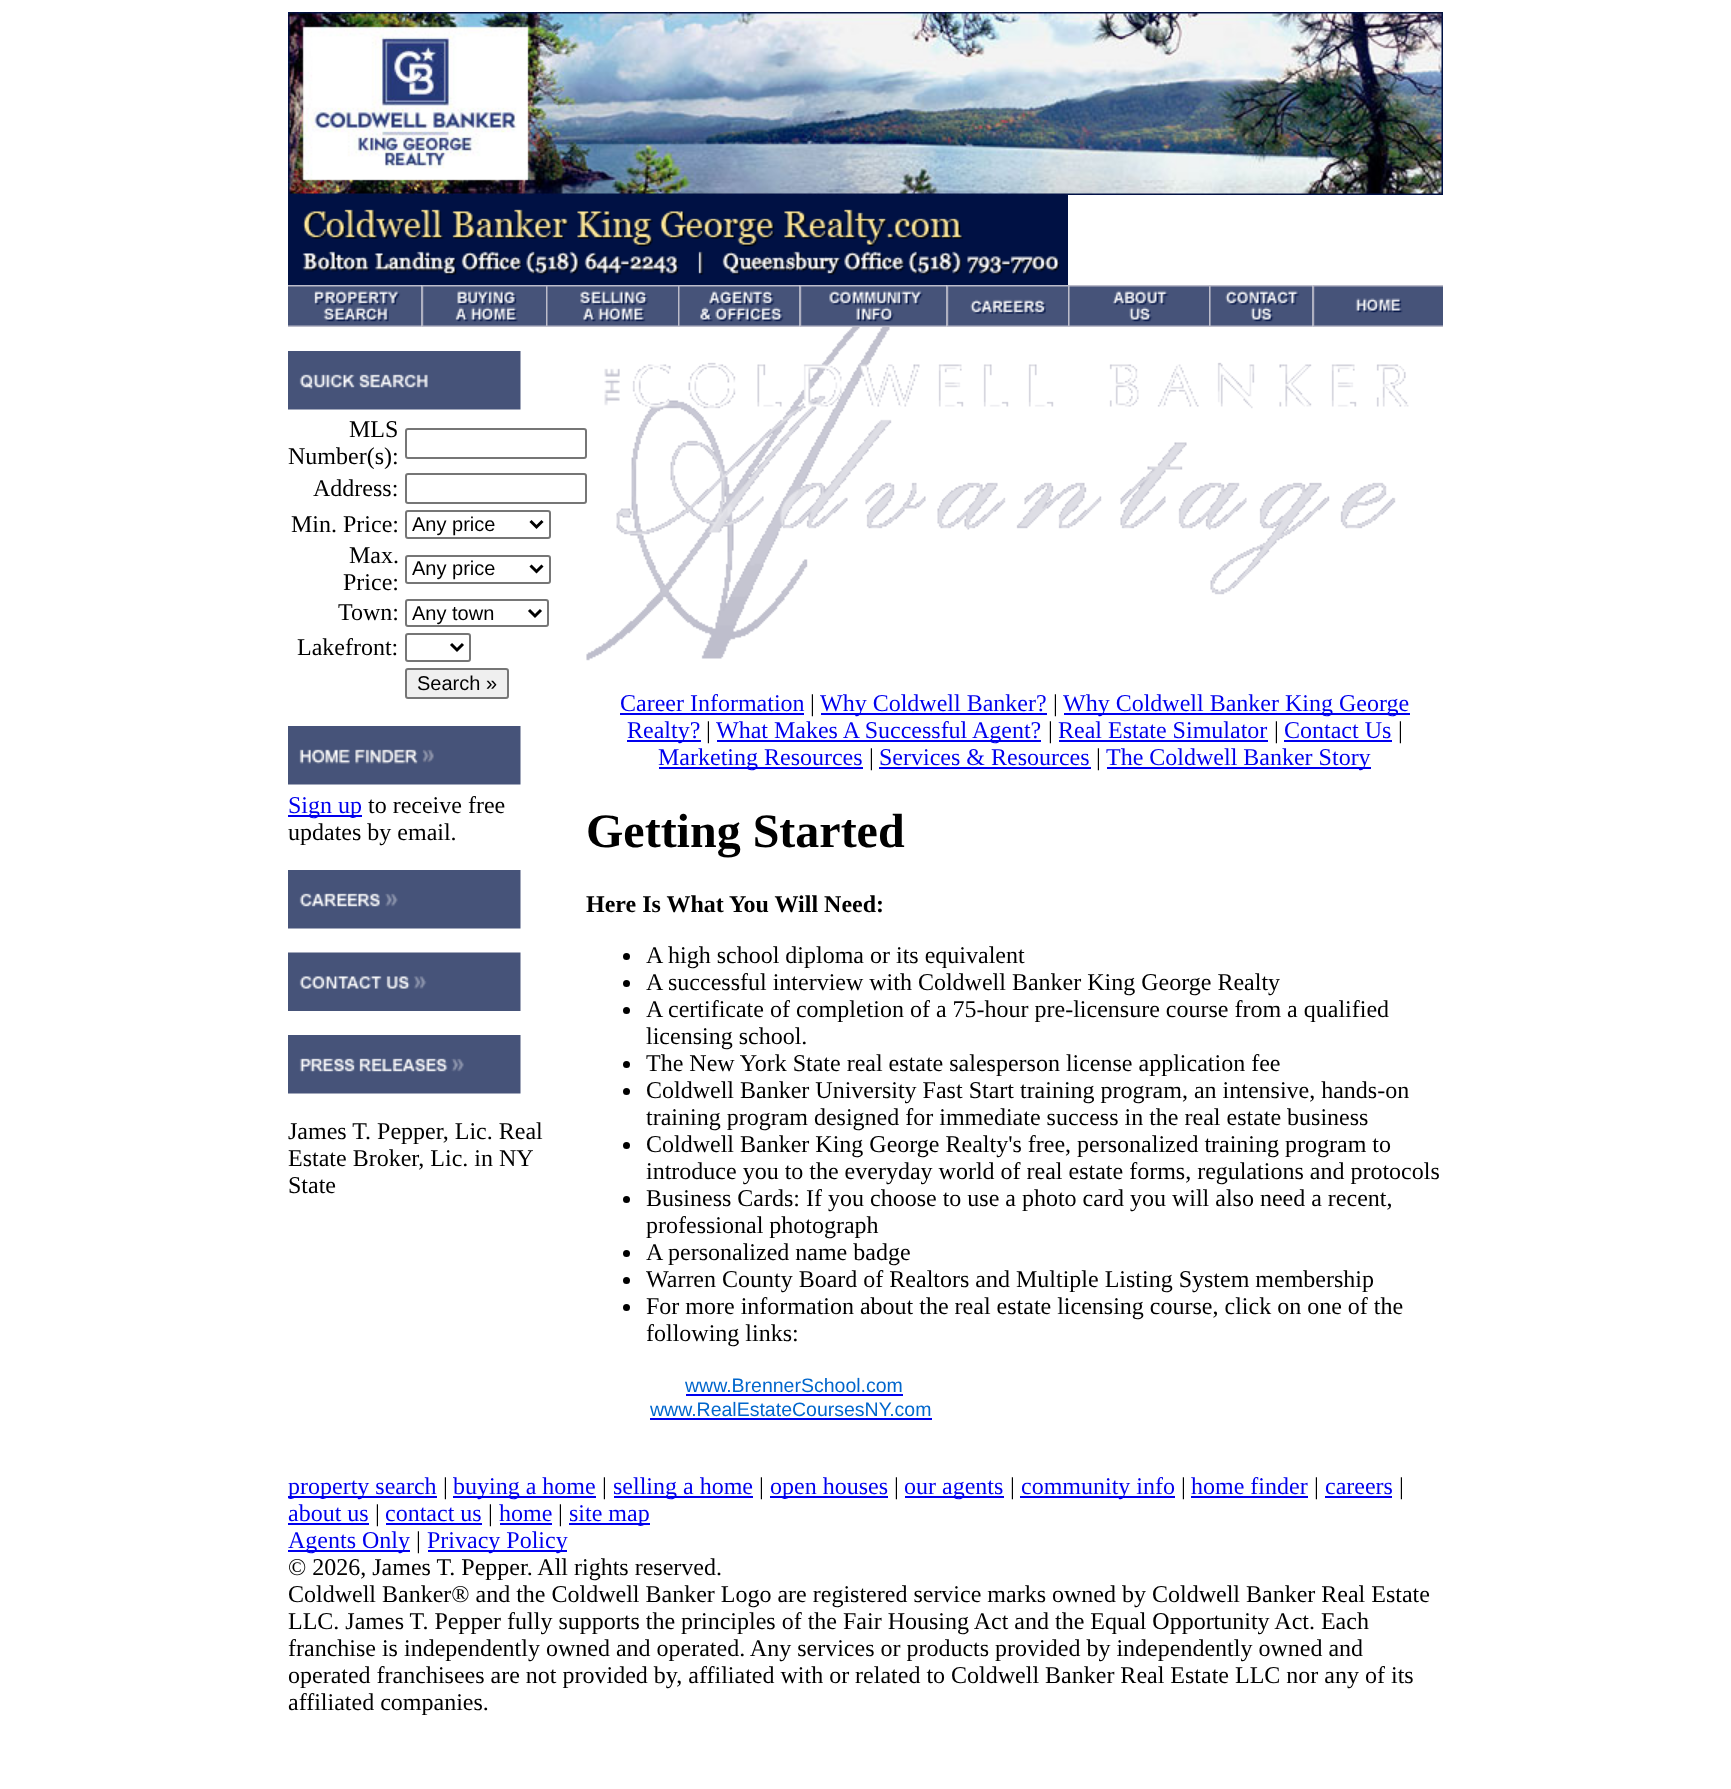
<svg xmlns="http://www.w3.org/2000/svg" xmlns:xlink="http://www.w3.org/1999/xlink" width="1731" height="1789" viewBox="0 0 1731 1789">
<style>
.cls-1{font:24px Liberation Serif;fill:#000000}
.cls-2{font:20px Liberation Sans;fill:#000000}
.cls-3{font:24px Liberation Serif;fill:#0000ee}
.cls-4{font:bold 48px Liberation Serif;fill:#000000}
.cls-5{font:bold 24px Liberation Serif;fill:#000000}
.cls-6{font:19.5px Liberation Sans;fill:#0066cc}
</style>
<rect width="100%" height="100%" fill="#ffffff"/>
<image xlink:href="image0.png" x="288" y="12" width="1155" height="183"/>
<image xlink:href="image1.png" x="288" y="195" width="780" height="90"/>
<image xlink:href="image2.png" x="288" y="285" width="134" height="42"/>
<image xlink:href="image3.png" x="421" y="285" width="125" height="42"/>
<image xlink:href="image4.png" x="546" y="285" width="132" height="42"/>
<image xlink:href="image5.png" x="678" y="285" width="122" height="42"/>
<image xlink:href="image6.png" x="799" y="285" width="148" height="42"/>
<image xlink:href="image7.png" x="946" y="285" width="122" height="42"/>
<image xlink:href="image8.png" x="1068" y="285" width="141" height="42"/>
<image xlink:href="image9.png" x="1209" y="285" width="104" height="42"/>
<image xlink:href="image10.png" x="1312" y="285" width="131" height="42"/>
<image xlink:href="image11.png" x="288" y="351" width="233" height="59"/>
<rect fill="none" stroke="#767676" stroke-width="2" x="406" y="429" width="180" height="29" rx="2"/>
<rect fill="none" stroke="#767676" stroke-width="2" x="406" y="474" width="180" height="29" rx="2"/>
<rect fill="none" stroke="#767676" stroke-width="2" x="406" y="511" width="144" height="27" rx="2"/>
<path fill="none" stroke="#000000" stroke-width="3" d="M530.5 521L536.5 527L542.5 521"/>
<rect fill="none" stroke="#767676" stroke-width="2" x="406" y="556" width="144" height="27" rx="2"/>
<path fill="none" stroke="#000000" stroke-width="3" d="M530.5 565.5L536.5 571.5L542.5 565.5"/>
<rect fill="none" stroke="#767676" stroke-width="2" x="406" y="600" width="142" height="26" rx="2"/>
<path fill="none" stroke="#000000" stroke-width="3" d="M529 610L535 616L541 610"/>
<rect fill="none" stroke="#767676" stroke-width="2" x="406" y="634" width="64" height="27" rx="2"/>
<path fill="none" stroke="#000000" stroke-width="3" d="M451 644L457 650L463 644"/>
<rect fill="#efefef" stroke="#767676" stroke-width="2" x="406" y="669" width="102" height="29" rx="2"/>
<image xlink:href="image12.png" x="288" y="726" width="233" height="59"/>
<rect fill="#0000ee" x="288" y="815" width="74" height="2"/>
<image xlink:href="image13.png" x="288" y="870" width="233" height="59"/>
<image xlink:href="image14.png" x="288" y="952" width="233" height="59"/>
<image xlink:href="image15.png" x="288" y="1035" width="233" height="59"/>
<image xlink:href="image16.png" x="586" y="327" width="823" height="334"/>
<rect fill="#0000ee" x="620" y="713" width="184" height="2"/>
<rect fill="#0000ee" x="821" y="713" width="226" height="2"/>
<rect fill="#0000ee" x="1064" y="713" width="346" height="2"/>
<rect fill="#0000ee" x="627" y="740" width="74" height="2"/>
<rect fill="#0000ee" x="717" y="740" width="324" height="2"/>
<rect fill="#0000ee" x="1059" y="740" width="209" height="2"/>
<rect fill="#0000ee" x="1284" y="740" width="108" height="2"/>
<rect fill="#0000ee" x="659" y="767" width="204" height="2"/>
<rect fill="#0000ee" x="879" y="767" width="212" height="2"/>
<rect fill="#0000ee" x="1107" y="767" width="264" height="2"/>
<circle fill="#000000" cx="626.5" cy="956.5" r="3.5"/>
<circle fill="#000000" cx="626.5" cy="983.5" r="3.5"/>
<circle fill="#000000" cx="626.5" cy="1010.5" r="3.5"/>
<circle fill="#000000" cx="626.5" cy="1064.5" r="3.5"/>
<circle fill="#000000" cx="626.5" cy="1091.5" r="3.5"/>
<circle fill="#000000" cx="626.5" cy="1145.5" r="3.5"/>
<circle fill="#000000" cx="626.5" cy="1199.5" r="3.5"/>
<circle fill="#000000" cx="626.5" cy="1253.5" r="3.5"/>
<circle fill="#000000" cx="626.5" cy="1280.5" r="3.5"/>
<circle fill="#000000" cx="626.5" cy="1307.5" r="3.5"/>
<rect fill="#0000ee" x="686" y="1394" width="217" height="2"/>
<rect fill="#0000ee" x="650" y="1418" width="282" height="2"/>
<rect fill="#0000ee" x="288" y="1496" width="149" height="2"/>
<rect fill="#0000ee" x="453" y="1496" width="143" height="2"/>
<rect fill="#0000ee" x="614" y="1496" width="139" height="2"/>
<rect fill="#0000ee" x="770" y="1496" width="118" height="2"/>
<rect fill="#0000ee" x="905" y="1496" width="99" height="2"/>
<rect fill="#0000ee" x="1020" y="1496" width="155" height="2"/>
<rect fill="#0000ee" x="1191" y="1496" width="117" height="2"/>
<rect fill="#0000ee" x="1325" y="1496" width="67" height="2"/>
<rect fill="#0000ee" x="288" y="1523" width="81" height="2"/>
<rect fill="#0000ee" x="386" y="1523" width="96" height="2"/>
<rect fill="#0000ee" x="500" y="1523" width="52" height="2"/>
<rect fill="#0000ee" x="569" y="1523" width="81" height="2"/>
<rect fill="#0000ee" x="288" y="1550" width="122" height="2"/>
<rect fill="#0000ee" x="428" y="1550" width="139" height="2"/>
<text class="cls-1" x="349" y="437">MLS</text>
<text class="cls-1" x="288" y="464">Number(s):</text>
<text class="cls-1" x="313" y="496">Address:</text>
<text class="cls-1" x="291" y="532">Min. Price:</text>
<text class="cls-2" x="412" y="531">Any price</text>
<text class="cls-1" x="349" y="563">Max.</text>
<text class="cls-1" x="343" y="590">Price:</text>
<text class="cls-2" x="412" y="575">Any price</text>
<text class="cls-1" x="338" y="620">Town:</text>
<text class="cls-2" x="412" y="620">Any town</text>
<text class="cls-1" x="297" y="655">Lakefront:</text>
<text class="cls-2" x="417" y="690">Search »</text>
<text class="cls-3" x="288" y="813">Sign up</text>
<text class="cls-1" x="368" y="813">to receive free</text>
<text class="cls-1" x="288" y="840">updates by email.</text>
<text class="cls-1"><tspan x="288" y="1139">James T. Pepper, Lic. Real</tspan><tspan x="288" y="1166">Estate Broker, Lic. in NY</tspan><tspan x="288" y="1193">State</tspan></text>
<text class="cls-3" x="620" y="711">Career Information</text>
<text class="cls-1" x="810" y="711">|</text>
<text class="cls-3" x="820" y="711">Why Coldwell Banker?</text>
<text class="cls-1" x="1053" y="711">|</text>
<text class="cls-3" x="1063" y="711">Why Coldwell Banker King George</text>
<text class="cls-3" x="627" y="738">Realty?</text>
<text class="cls-1" x="706" y="738">|</text>
<text class="cls-3" x="716" y="738">What Makes A Successful Agent?</text>
<text class="cls-1" x="1048" y="738">|</text>
<text class="cls-3" x="1058" y="738">Real Estate Simulator</text>
<text class="cls-1" x="1274" y="738">|</text>
<text class="cls-3" x="1284" y="738">Contact Us</text>
<text class="cls-1" x="1398" y="738">|</text>
<text class="cls-3" x="658" y="765">Marketing Resources</text>
<text class="cls-1" x="869" y="765">|</text>
<text class="cls-3" x="879" y="765">Services &amp; Resources</text>
<text class="cls-1" x="1096" y="765">|</text>
<text class="cls-3" x="1106" y="765">The Coldwell Banker Story</text>
<text class="cls-4" x="586" y="847">Getting Started</text>
<text class="cls-5" x="586" y="912">Here Is What You Will Need:</text>
<text class="cls-1"><tspan x="646" y="963">A high school diploma or its equivalent</tspan><tspan x="646" y="990">A successful interview with Coldwell Banker King George Realty</tspan><tspan x="646" y="1017">A certificate of completion of a 75-hour pre-licensure course from a qualified</tspan><tspan x="646" y="1044">licensing school.</tspan><tspan x="646" y="1071">The New York State real estate salesperson license application fee</tspan><tspan x="646" y="1098">Coldwell Banker University Fast Start training program, an intensive, hands-on</tspan><tspan x="646" y="1125">training program designed for immediate success in the real estate business</tspan><tspan x="646" y="1152">Coldwell Banker King George Realty's free, personalized training program to</tspan><tspan x="646" y="1179">introduce you to the everyday world of real estate forms, regulations and protocols</tspan><tspan x="646" y="1206">Business Cards: If you choose to use a photo card you will also need a recent,</tspan><tspan x="646" y="1233">professional photograph</tspan><tspan x="646" y="1260">A personalized name badge</tspan><tspan x="646" y="1287">Warren County Board of Realtors and Multiple Listing System membership</tspan><tspan x="646" y="1314">For more information about the real estate licensing course, click on one of the</tspan><tspan x="646" y="1341">following links:</tspan></text>
<text class="cls-6" x="685" y="1392">www.BrennerSchool.com</text>
<text class="cls-6" x="650" y="1416">www.RealEstateCoursesNY.com</text>
<text class="cls-3" x="288" y="1494">property search</text>
<text class="cls-1" x="443" y="1494">|</text>
<text class="cls-3" x="453" y="1494">buying a home</text>
<text class="cls-1" x="602" y="1494">|</text>
<text class="cls-3" x="613" y="1494">selling a home</text>
<text class="cls-1" x="759" y="1494">|</text>
<text class="cls-3" x="770" y="1494">open houses</text>
<text class="cls-1" x="894" y="1494">|</text>
<text class="cls-3" x="904" y="1494">our agents</text>
<text class="cls-1" x="1010" y="1494">|</text>
<text class="cls-3" x="1021" y="1494">community info</text>
<text class="cls-1" x="1181" y="1494">|</text>
<text class="cls-3" x="1191" y="1494">home finder</text>
<text class="cls-1" x="1314" y="1494">|</text>
<text class="cls-3" x="1325" y="1494">careers</text>
<text class="cls-1" x="1399" y="1494">|</text>
<text class="cls-3" x="288" y="1521">about us</text>
<text class="cls-1" x="375" y="1521">|</text>
<text class="cls-3" x="385" y="1521">contact us</text>
<text class="cls-1" x="488" y="1521">|</text>
<text class="cls-3" x="499" y="1521">home</text>
<text class="cls-1" x="558" y="1521">|</text>
<text class="cls-3" x="569" y="1521">site map</text>
<text class="cls-3" x="288" y="1548">Agents Only</text>
<text class="cls-1" x="416" y="1548">|</text>
<text class="cls-3" x="427" y="1548">Privacy Policy</text>
<text class="cls-1"><tspan x="288" y="1575">© 2026, James T. Pepper. All rights reserved.</tspan><tspan x="288" y="1602">Coldwell Banker® and the Coldwell Banker Logo are registered service marks owned by Coldwell Banker Real Estate</tspan><tspan x="288" y="1629">LLC. James T. Pepper fully supports the principles of the Fair Housing Act and the Equal Opportunity Act. Each</tspan><tspan x="288" y="1656">franchise is independently owned and operated. Any services or products provided by independently owned and</tspan><tspan x="288" y="1683">operated franchisees are not provided by, affiliated with or related to Coldwell Banker Real Estate LLC nor any of its</tspan><tspan x="288" y="1710">affiliated companies.</tspan></text>
</svg>
